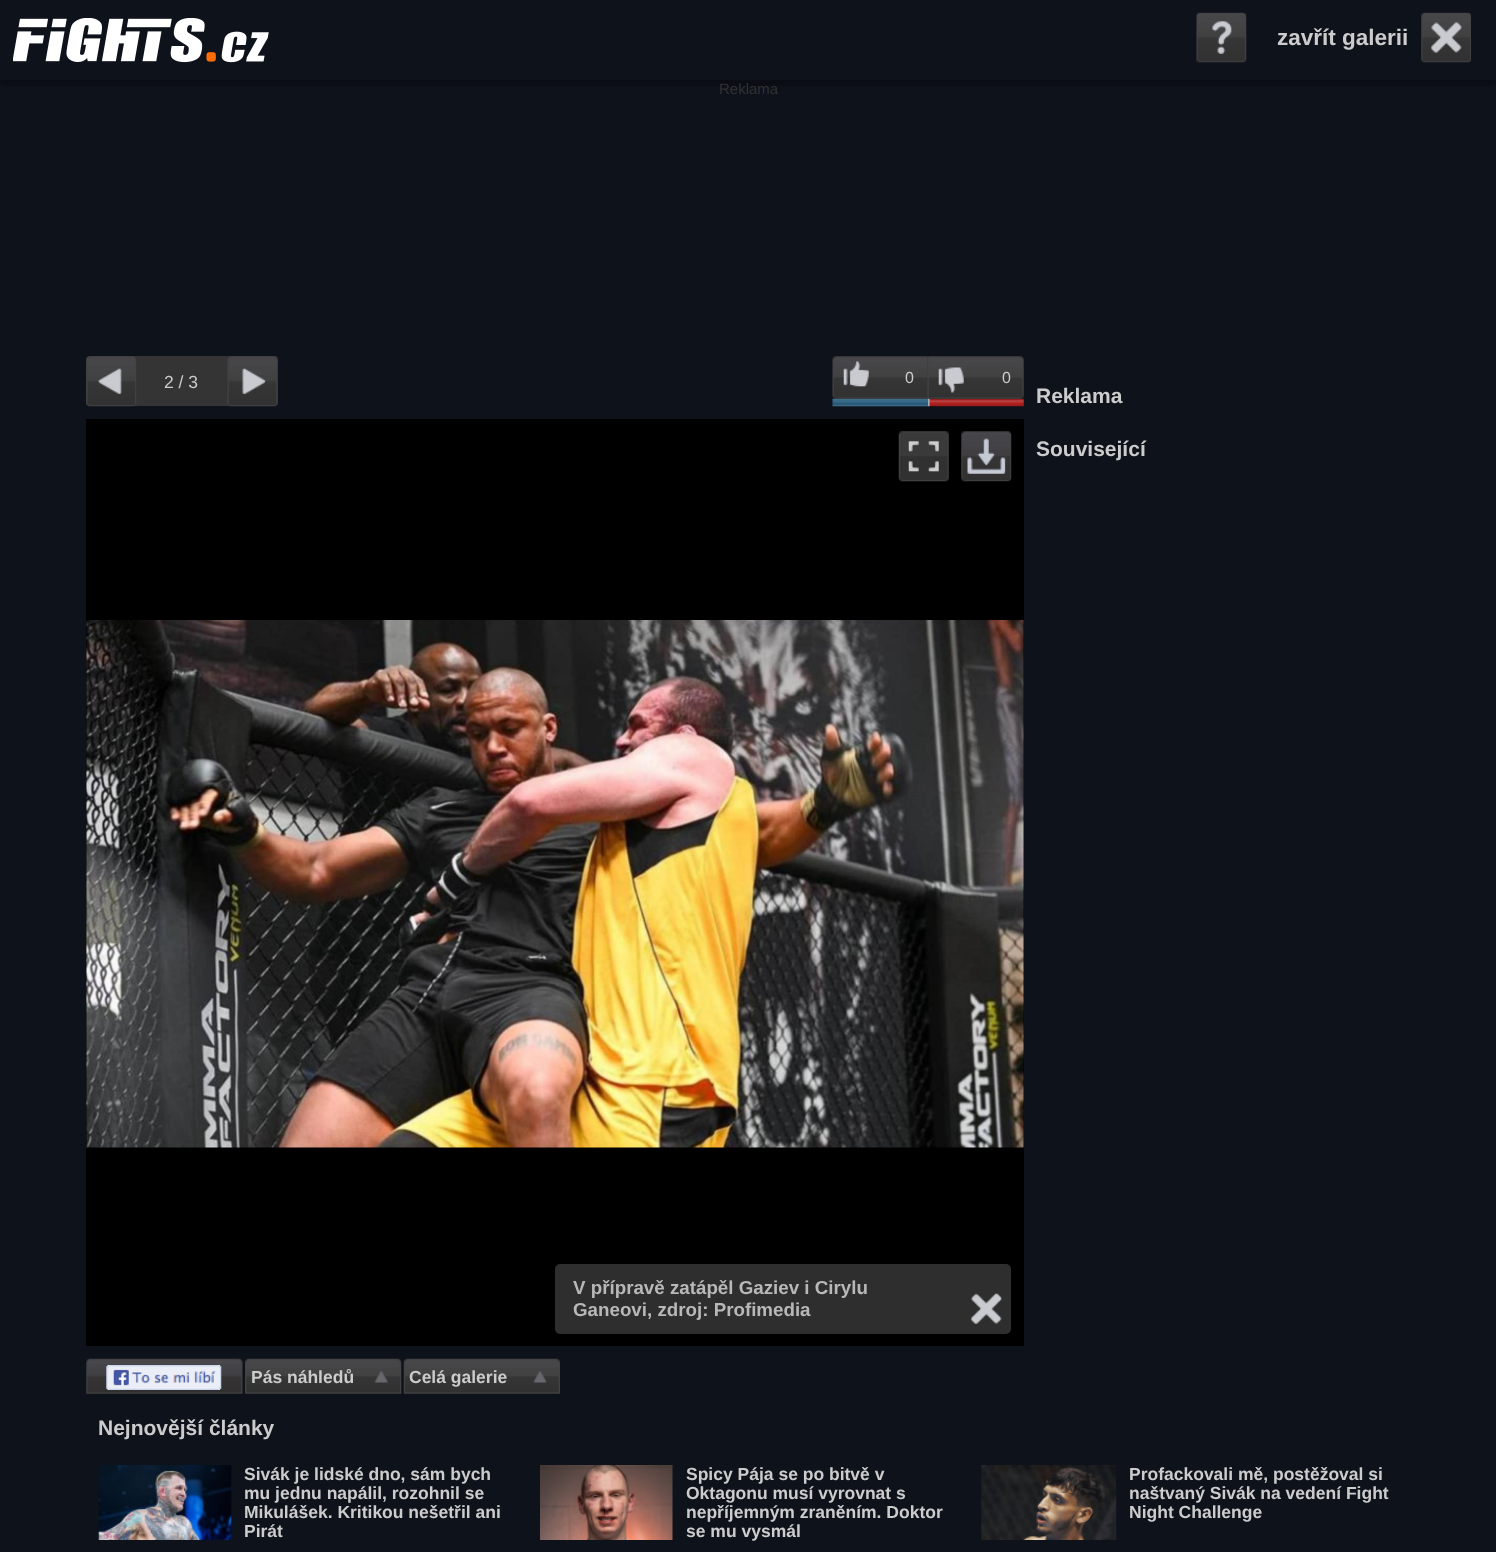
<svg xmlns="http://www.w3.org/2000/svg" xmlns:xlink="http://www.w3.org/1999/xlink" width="1496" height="1552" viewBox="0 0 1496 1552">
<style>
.cls-1{font:bold 22.5px Liberation Sans;fill:#cccccc}
.cls-2{font:15px Liberation Sans;fill:#323232}
.cls-3{font:17.5px Liberation Sans;fill:#cccccc}
.cls-4{font:16px Liberation Sans;fill:#cccccc}
.cls-5{font:bold 18.75px Liberation Sans;fill:#b8b8b8}
.cls-6{font:bold 17.5px Liberation Sans;fill:#cccccc}
.cls-7{font:bold 21px Liberation Sans;fill:#cccccc}
</style>
<defs>
<clipPath id="clip1"><rect x="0" y="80" width="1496" height="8"/></clipPath>
</defs>
<rect width="100%" height="100%" fill="#0e121b"/>
<g clip-path="url(#clip1)">
<rect fill="#000000" fill-opacity="0.27" filter="blur(1.5px)" x="0" y="6" width="1496" height="80"/>
</g>
<image xlink:href="image0.png" x="13" y="18" width="256" height="45"/>
<image xlink:href="image1.png" x="1196" y="12" width="51" height="51"/>
<image xlink:href="image2.png" x="1421" y="12" width="50" height="51"/>
<rect fill="#353434" x="86" y="356" width="192" height="50" rx="4"/>
<image xlink:href="image3.png" x="86" y="356" width="51" height="51"/>
<image xlink:href="image4.png" x="227" y="356" width="51" height="51"/>
<image xlink:href="image8.png" x="832" y="398" width="192" height="9"/>
<image xlink:href="image5.png" x="832" y="356" width="96" height="43"/>
<image xlink:href="image6.png" x="927" y="356" width="2" height="43"/>
<image xlink:href="image7.png" x="928" y="356" width="96" height="43"/>
<rect fill="#000000" x="86" y="419" width="938" height="927"/>
<image xlink:href="image9.png" x="898" y="431" width="51" height="51"/>
<image xlink:href="image10.png" x="961" y="431" width="51" height="51"/>
<image xlink:href="image11.png" x="86" y="620" width="938" height="528"/>
<rect fill="#2e2e2e" x="555" y="1264" width="456" height="70" rx="5"/>
<image xlink:href="image12.png" x="971" y="1293" width="31" height="31"/>
<image xlink:href="image13.png" x="86" y="1358" width="157" height="36"/>
<image xlink:href="image14.png" x="106" y="1365" width="116" height="25"/>
<image xlink:href="image15.png" x="245" y="1358" width="157" height="36"/>
<image xlink:href="image16.png" x="403" y="1358" width="157" height="36"/>
<image xlink:href="image17.png" x="98" y="1465" width="134" height="75"/>
<image xlink:href="image18.png" x="540" y="1465" width="133" height="75"/>
<image xlink:href="image19.png" x="981" y="1465" width="136" height="75"/>
<text class="cls-1" x="1277" y="45">zavřít galerii</text>
<text class="cls-2" x="719" y="94">Reklama</text>
<text class="cls-3" x="164" y="388">2 / 3</text>
<text class="cls-4" x="905" y="383">0</text>
<text class="cls-4" x="1002" y="383">0</text>
<text class="cls-5"><tspan x="573" y="1294">V přípravě zatápěl Gaziev i Cirylu</tspan><tspan x="573" y="1316">Ganeovi, zdroj: Profimedia</tspan></text>
<text class="cls-6" x="251" y="1383">Pás náhledů</text>
<text class="cls-6" x="409" y="1383">Celá galerie</text>
<text class="cls-7" x="1036" y="403">Reklama</text>
<text class="cls-7" x="1036" y="456">Související</text>
<text class="cls-7" x="98" y="1435">Nejnovější články</text>
<text class="cls-6"><tspan x="244" y="1480">Sivák je lidské dno, sám bych</tspan><tspan x="244" y="1499">mu jednu napálil, rozohnil se</tspan><tspan x="244" y="1518">Mikulášek. Kritikou nešetřil ani</tspan><tspan x="244" y="1537">Pirát</tspan></text>
<text class="cls-6"><tspan x="686" y="1480">Spicy Pája se po bitvě v</tspan><tspan x="686" y="1499">Oktagonu musí vyrovnat s</tspan><tspan x="686" y="1518">nepříjemným zraněním. Doktor</tspan><tspan x="686" y="1537">se mu vysmál</tspan></text>
<text class="cls-6"><tspan x="1129" y="1480">Profackovali mě, postěžoval si</tspan><tspan x="1129" y="1499">naštvaný Sivák na vedení Fight</tspan><tspan x="1129" y="1518">Night Challenge</tspan></text>
</svg>
